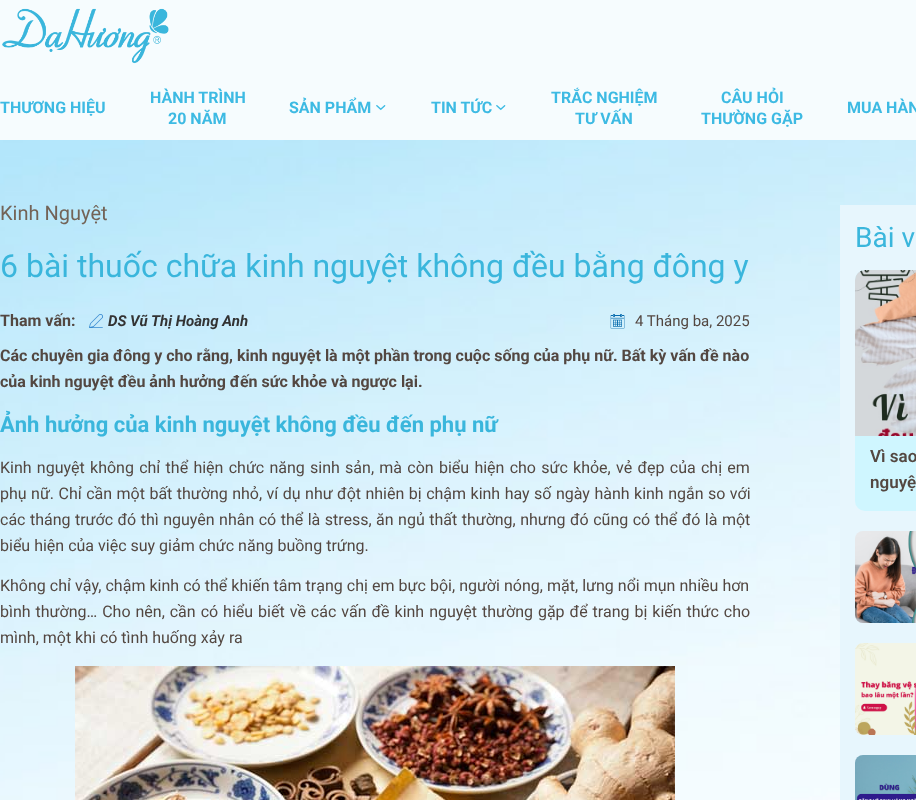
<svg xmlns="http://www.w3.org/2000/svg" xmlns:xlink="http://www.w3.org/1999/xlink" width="916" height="800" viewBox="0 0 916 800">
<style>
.cls-1{font:bold 16px Roboto;fill:#3dbae3}
.cls-2{font:20px Roboto;fill:#736357}
.cls-3{font:32px Roboto;fill:#3ab6dc}
.cls-4{font:bold 16px Roboto;fill:#534741}
.cls-5{font:italic bold 15px Roboto;fill:#333333}
.cls-6{font:15px Roboto;fill:#534741}
.cls-7{font:bold 22px Roboto;fill:#3ab6dc}
.cls-8{font:16px Roboto;fill:#534741}
.cls-9{font:28px Roboto;fill:#3ab6dc}
.cls-10{font:600 17px Roboto;fill:#534741}
</style>
<rect width="100%" height="100%" fill="#f6fcfe"/>
<image xlink:href="image0.png" x="2" y="8" width="167" height="56"/>
<image xlink:href="image1.png" x="376" y="105" width="10" height="6"/>
<image xlink:href="image1.png" x="496" y="105" width="10" height="6"/>
<image xlink:href="image2.png" x="0" y="140" width="916" height="660"/>
<image xlink:href="image3.png" x="89" y="314" width="14" height="14"/>
<image xlink:href="image4.png" x="610" y="314" width="15" height="15"/>
<image xlink:href="image5.png" x="75" y="666" width="600" height="134"/>
<rect fill="#e7f6fd" x="840" y="205" width="76" height="595"/>
<rect fill="#cff6ff" x="855" y="270" width="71" height="241" rx="10"/>
<image xlink:href="image6.png" x="855" y="270" width="61" height="166"/>
<image xlink:href="image7.png" x="855" y="531" width="61" height="92"/>
<image xlink:href="image8.png" x="855" y="643" width="61" height="92"/>
<image xlink:href="image9.png" x="855" y="755" width="61" height="45"/>
<text class="cls-1" x="0" y="113">THƯƠNG HIỆU</text>
<text class="cls-1" x="150" y="103">HÀNH TRÌNH</text>
<text class="cls-1" x="168" y="124">20 NĂM</text>
<text class="cls-1" x="289" y="113">SẢN PHẨM</text>
<text class="cls-1" x="431" y="113">TIN TỨC</text>
<text class="cls-1" x="551" y="103">TRẮC NGHIỆM</text>
<text class="cls-1" x="575" y="124">TƯ VẤN</text>
<text class="cls-1" x="721" y="103">CÂU HỎI</text>
<text class="cls-1" x="701" y="124">THƯỜNG GẶP</text>
<text class="cls-1" x="847" y="113">MUA HÀN</text>
<text class="cls-2" x="0" y="220">Kinh Nguyệt</text>
<text class="cls-3" x="0" y="277">6 bài thuốc chữa kinh nguyệt không đều bằng đông y</text>
<text class="cls-4" x="0" y="326">Tham vấn:</text>
<text class="cls-5" x="108" y="326">DS Vũ Thị Hoàng Anh</text>
<text class="cls-6" x="635" y="326">4 Tháng ba, 2025</text>
<text class="cls-4"><tspan x="0" y="361">Các chuyên gia đông y cho rằng, kinh nguyệt là một phần trong cuộc sống của phụ nữ. Bất kỳ vấn đề nào</tspan><tspan x="0" y="387">của kinh nguyệt đều ảnh hưởng đến sức khỏe và ngược lại.</tspan></text>
<text class="cls-7" x="0" y="432">Ảnh hưởng của kinh nguyệt không đều đến phụ nữ</text>
<text class="cls-8"><tspan x="0" y="473" word-spacing="1.3">Kinh nguyệt không chỉ thể hiện chức năng sinh sản, mà còn biểu hiện cho sức khỏe, vẻ đẹp của chị em</tspan><tspan x="0" y="499" word-spacing="0.5">phụ nữ. Chỉ cần một bất thường nhỏ, ví dụ như đột nhiên bị chậm kinh hay số ngày hành kinh ngắn so với</tspan><tspan x="0" y="525" word-spacing="0.5">các tháng trước đó thì nguyên nhân có thể là stress, ăn ngủ thất thường, nhưng đó cũng có thể đó là một</tspan><tspan x="0" y="551">biểu hiện của việc suy giảm chức năng buồng trứng.</tspan></text>
<text class="cls-8"><tspan x="0" y="591" word-spacing="0.1">Không chỉ vậy, chậm kinh có thể khiến tâm trạng chị em bực bội, người nóng, mặt, lưng nổi mụn nhiều hơn</tspan><tspan x="0" y="617" word-spacing="1">bình thường… Cho nên, cần có hiểu biết về các vấn đề kinh nguyệt thường gặp để trang bị kiến thức cho</tspan><tspan x="0" y="643">mình, một khi có tình huống xảy ra</tspan></text>
<text class="cls-9" x="855" y="247">Bài v</text>
<text class="cls-10"><tspan x="870" y="462">Vì sao</tspan><tspan x="870" y="488">nguyệ</tspan></text>
</svg>
